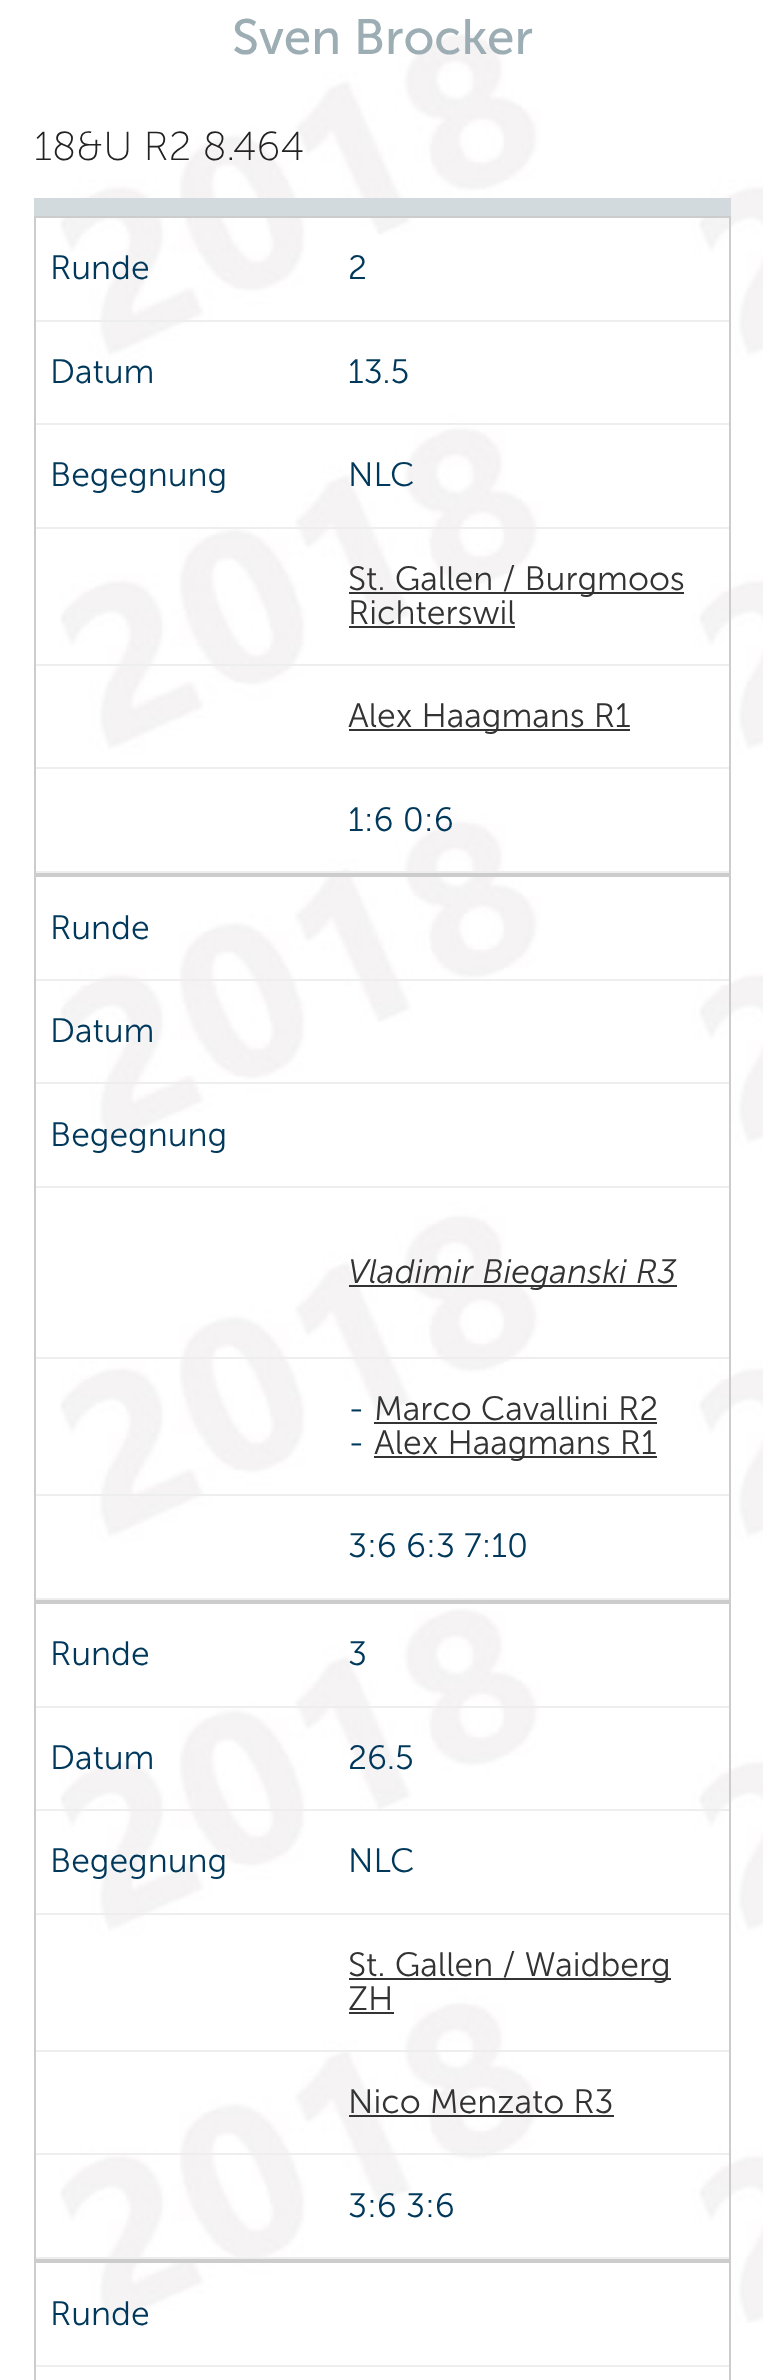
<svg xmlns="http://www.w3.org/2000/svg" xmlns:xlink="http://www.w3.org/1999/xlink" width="763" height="2380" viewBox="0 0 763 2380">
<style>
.cls-1{font:49.5px Museo Sans;fill:#9cadb3}
.cls-2{font:200 40.5px Museo Sans;fill:#222222}
.cls-3{font:300 33.75px Museo Sans;fill:#00385b}
.cls-4{font:300 33.75px Museo Sans;fill:#333333}
.cls-5{font:italic 300 33.75px Museo Sans;fill:#333333}
</style>
<rect width="100%" height="100%" fill="#ffffff"/>
<image xlink:href="image0.png" x="60" y="34" width="703" height="2289"/>
<rect fill="#d2dadd" x="34" y="198" width="697" height="18"/>
<rect fill="none" stroke="#cccccc" stroke-width="2" x="35" y="217" width="695" height="657"/>
<rect fill="#eeeeee" x="36" y="320" width="693" height="2"/>
<rect fill="#eeeeee" x="36" y="423" width="693" height="2"/>
<rect fill="#eeeeee" x="36" y="527" width="693" height="2"/>
<rect fill="#eeeeee" x="36" y="664" width="693" height="2"/>
<rect fill="#333333" x="349" y="592" width="335" height="2"/>
<rect fill="#333333" x="349" y="626" width="166" height="2"/>
<rect fill="#eeeeee" x="36" y="767" width="693" height="2"/>
<rect fill="#333333" x="349" y="729" width="281" height="2"/>
<rect fill="#eeeeee" x="36" y="871" width="693" height="2"/>
<rect fill="none" stroke="#cccccc" stroke-width="2" x="35" y="876" width="695" height="725"/>
<rect fill="#eeeeee" x="36" y="979" width="693" height="2"/>
<rect fill="#eeeeee" x="36" y="1082" width="693" height="2"/>
<rect fill="#eeeeee" x="36" y="1186" width="693" height="2"/>
<rect fill="#eeeeee" x="36" y="1357" width="693" height="2"/>
<rect fill="#333333" x="349" y="1285" width="328" height="2"/>
<rect fill="#eeeeee" x="36" y="1494" width="693" height="2"/>
<rect fill="#333333" x="374" y="1422" width="283" height="2"/>
<rect fill="#333333" x="374" y="1456" width="283" height="2"/>
<rect fill="#eeeeee" x="36" y="1598" width="693" height="2"/>
<rect fill="none" stroke="#cccccc" stroke-width="2" x="35" y="1603" width="695" height="657"/>
<rect fill="#eeeeee" x="36" y="1706" width="693" height="2"/>
<rect fill="#eeeeee" x="36" y="1809" width="693" height="2"/>
<rect fill="#eeeeee" x="36" y="1913" width="693" height="2"/>
<rect fill="#eeeeee" x="36" y="2050" width="693" height="2"/>
<rect fill="#333333" x="349" y="1978" width="322" height="2"/>
<rect fill="#333333" x="349" y="2012" width="45" height="2"/>
<rect fill="#eeeeee" x="36" y="2153" width="693" height="2"/>
<rect fill="#333333" x="349" y="2115" width="265" height="2"/>
<rect fill="#eeeeee" x="36" y="2257" width="693" height="2"/>
<rect fill="none" stroke="#cccccc" stroke-width="2" x="35" y="2262" width="695" height="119"/>
<rect fill="#eeeeee" x="36" y="2365" width="693" height="2"/>
<text class="cls-1" x="232" y="54">Sven Brocker</text>
<text class="cls-2" x="34" y="160">18&amp;U R2 8.464</text>
<text class="cls-3" x="50" y="279">Runde</text>
<text class="cls-3" x="348" y="279">2</text>
<text class="cls-3" x="50" y="383">Datum</text>
<text class="cls-3" x="348" y="383">13.5</text>
<text class="cls-3" x="50" y="486">Begegnung</text>
<text class="cls-3" x="348" y="486">NLC</text>
<text class="cls-4"><tspan x="348" y="590">St. Gallen / Burgmoos</tspan><tspan x="348" y="624">Richterswil</tspan></text>
<text class="cls-4" x="348" y="727">Alex Haagmans R1</text>
<text class="cls-3" x="348" y="831">1:6 0:6</text>
<text class="cls-3" x="50" y="939">Runde</text>
<text class="cls-3" x="50" y="1042">Datum</text>
<text class="cls-3" x="50" y="1146">Begegnung</text>
<text class="cls-5" x="348" y="1283">Vladimir Bieganski R3</text>
<text class="cls-3" x="348" y="1420">-</text>
<text class="cls-4" x="374" y="1420">Marco Cavallini R2</text>
<text class="cls-3" x="348" y="1454">-</text>
<text class="cls-4" x="374" y="1454">Alex Haagmans R1</text>
<text class="cls-3" x="348" y="1557">3:6 6:3 7:10</text>
<text class="cls-3" x="50" y="1665">Runde</text>
<text class="cls-3" x="348" y="1665">3</text>
<text class="cls-3" x="50" y="1769">Datum</text>
<text class="cls-3" x="348" y="1769">26.5</text>
<text class="cls-3" x="50" y="1872">Begegnung</text>
<text class="cls-3" x="348" y="1872">NLC</text>
<text class="cls-4"><tspan x="348" y="1976">St. Gallen / Waidberg</tspan><tspan x="348" y="2010">ZH</tspan></text>
<text class="cls-4" x="348" y="2113">Nico Menzato R3</text>
<text class="cls-3" x="348" y="2217">3:6 3:6</text>
<text class="cls-3" x="50" y="2325">Runde</text>
</svg>
